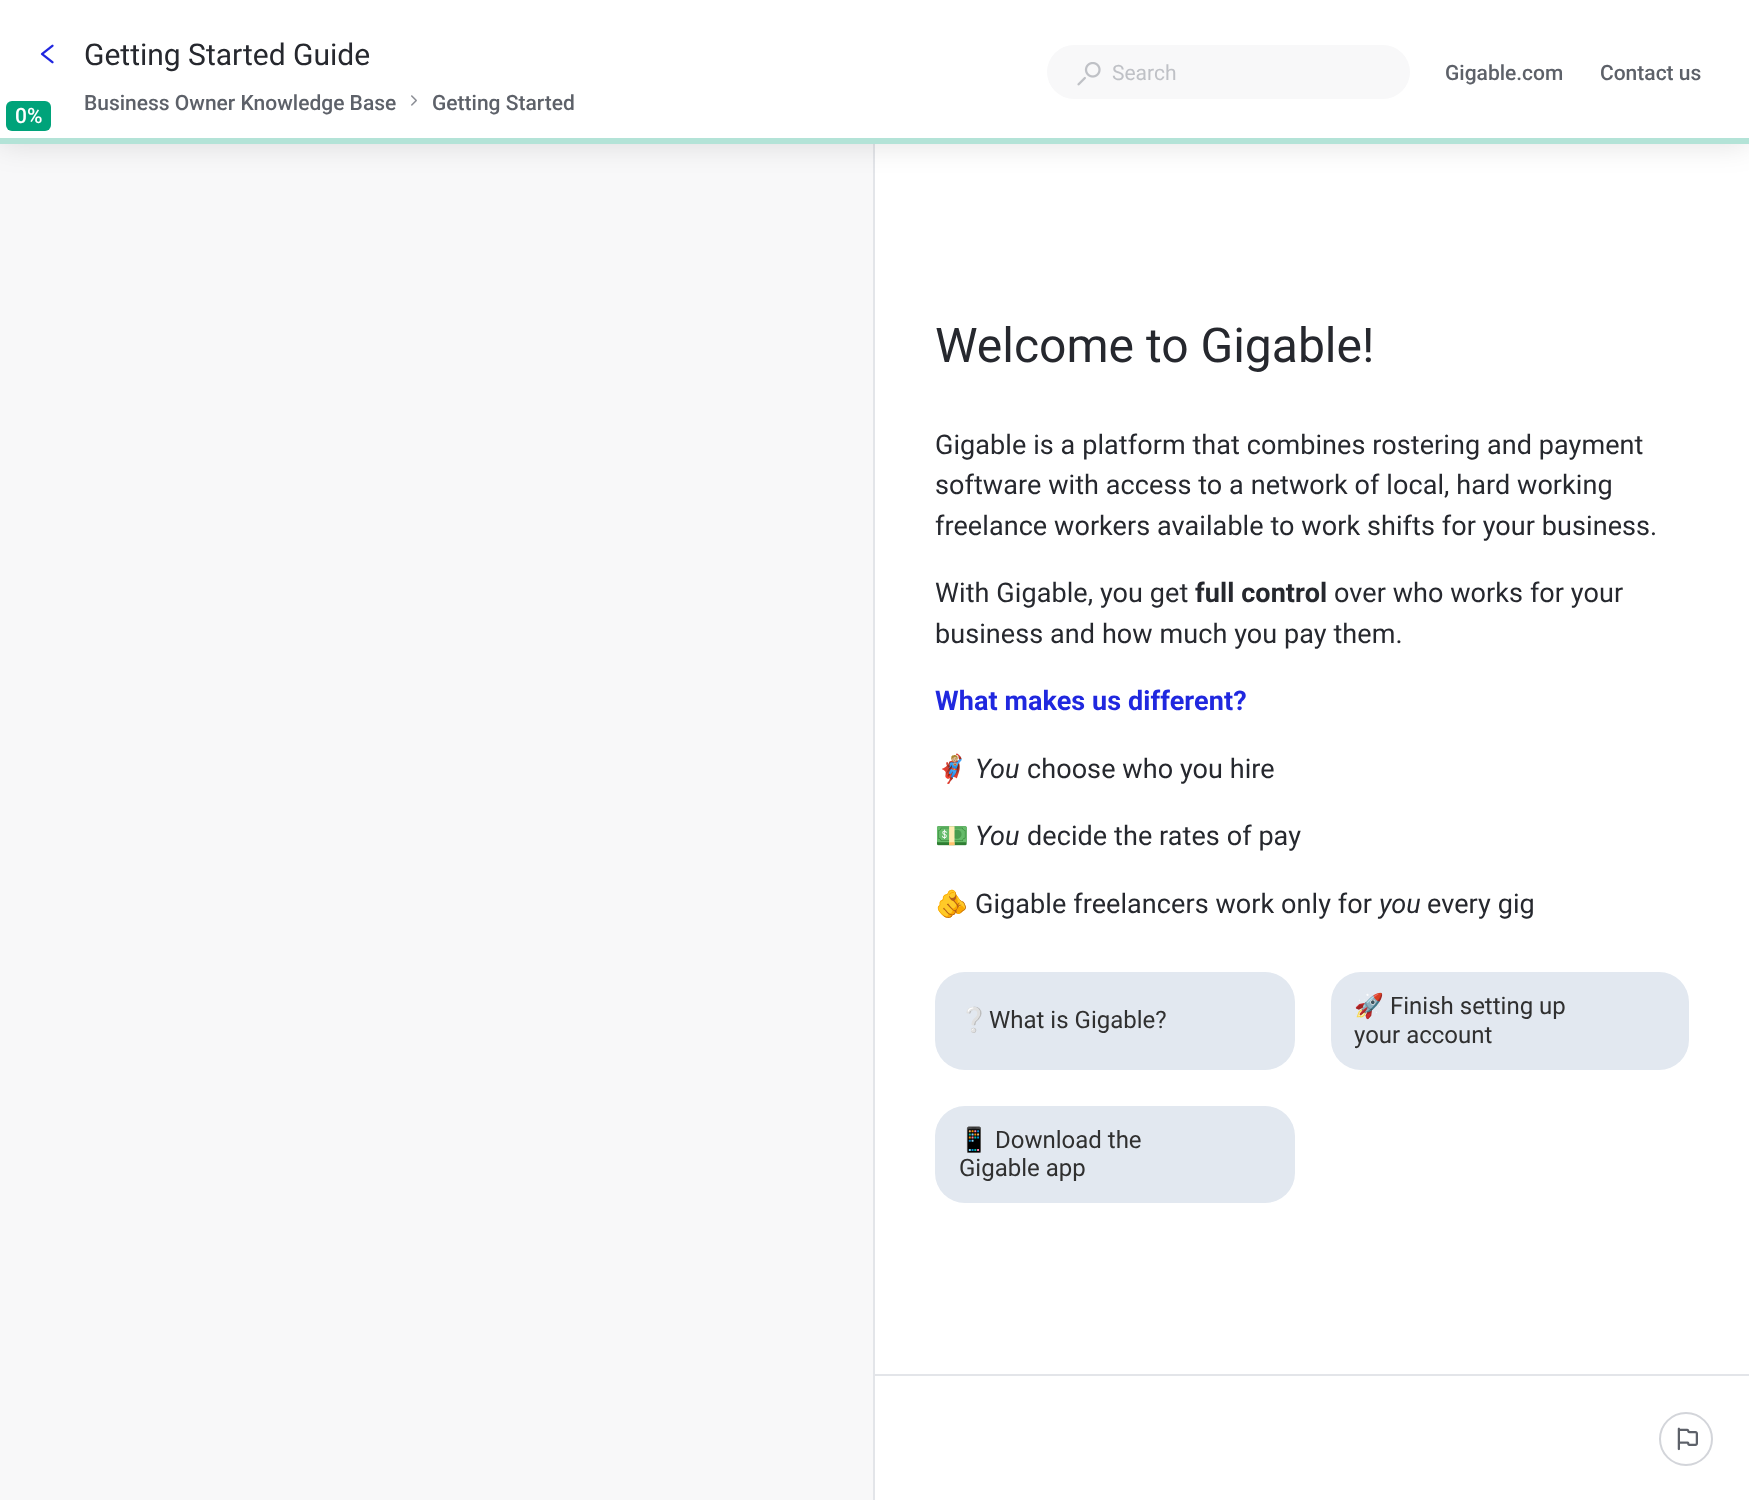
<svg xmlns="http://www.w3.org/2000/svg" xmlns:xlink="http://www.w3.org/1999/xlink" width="1749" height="1500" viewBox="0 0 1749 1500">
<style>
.cls-1{font:30px Roboto;fill:#26282e}
.cls-2{font:500 21px Roboto;fill:#5d6169}
.cls-3{font:21px Roboto;fill:#bfc1c6}
.cls-4{font:500 21px Roboto;fill:#ffffff}
.cls-5{font:48px Roboto;fill:#26282e}
.cls-6{font:27px Roboto;letter-spacing:0.08px;fill:#26282e}
.cls-7{font:bold 27px Roboto;letter-spacing:0.08px;fill:#26282e}
.cls-8{font:bold 27px Roboto;letter-spacing:0.08px;fill:#2028df}
.cls-9{font:27px Noto Color Emoji;letter-spacing:0.08px;fill:#26282e}
.cls-10{font:italic 27px Roboto;letter-spacing:0.08px;fill:#26282e}
.cls-11{font:24px Noto Color Emoji;fill:#303030}
.cls-12{font:24px Roboto;fill:#303030}
</style>
<rect width="100%" height="100%" fill="#ffffff"/>
<rect fill="#e3e5e9" x="873" y="144" width="2" height="1356"/>
<rect fill="#f8f8f9" x="0" y="144" width="873" height="1356"/>
<rect fill="#000000" fill-opacity="0.12" filter="blur(15px)" x="0" y="0" width="1749" height="144"/>
<rect fill="#ffffff" x="0" y="0" width="1749" height="138"/>
<image xlink:href="image0.png" x="40" y="44" width="14" height="20"/>
<image xlink:href="image1.png" x="411" y="95" width="6" height="11"/>
<rect fill="#f8f8f9" x="1047" y="45" width="363" height="54" rx="27"/>
<image xlink:href="image2.png" x="1077" y="62" width="24" height="24"/>
<rect fill="#00a37a" x="6" y="101" width="45" height="30" rx="6"/>
<rect fill="#b3e3d7" x="0" y="138" width="1749" height="6"/>
<rect fill="#e2e8f0" x="935" y="972" width="360" height="98" rx="30"/>
<rect fill="#e2e8f0" x="1331" y="972" width="358" height="98" rx="30"/>
<rect fill="#e2e8f0" x="935" y="1106" width="360" height="97" rx="30"/>
<rect fill="#e3e5e9" x="875" y="1374" width="874" height="2"/>
<circle fill="none" stroke="#d3d5da" stroke-width="2" cx="1686" cy="1439" r="26"/>
<image xlink:href="image3.png" x="1677" y="1427" width="21" height="24"/>
<text class="cls-1" x="84" y="65">Getting Started Guide</text>
<text class="cls-2" x="84" y="110">Business Owner Knowledge Base</text>
<text class="cls-2" x="432" y="110">Getting Started</text>
<text class="cls-3" x="1112" y="80">Search</text>
<text class="cls-2" x="1445" y="80">Gigable.com</text>
<text class="cls-2" x="1600" y="80">Contact us</text>
<text class="cls-4" x="15" y="123">0%</text>
<text class="cls-5" x="935" y="362">Welcome to Gigable!</text>
<text class="cls-6"><tspan x="935" y="454">Gigable is a platform that combines rostering and payment</tspan><tspan x="935" y="494">software with access to a network of local, hard working</tspan><tspan x="935" y="535">freelance workers available to work shifts for your business.</tspan></text>
<text class="cls-6" x="935" y="602">With Gigable, you get</text>
<text class="cls-7" x="1195" y="602">full control</text>
<text class="cls-6" x="1334" y="602">over who works for your</text>
<text class="cls-6" x="935" y="643">business and how much you pay them.</text>
<text class="cls-8" x="935" y="710">What makes us different?</text>
<text class="cls-9" x="935" y="778">🦸🏼</text>
<text class="cls-10" x="975" y="778">You</text>
<text class="cls-6" x="1027" y="778">choose who you hire</text>
<text class="cls-9" x="935" y="845">💵</text>
<text class="cls-10" x="975" y="845">You</text>
<text class="cls-6" x="1027" y="845">decide the rates of pay</text>
<text class="cls-9" x="935" y="913">🫵</text>
<text class="cls-6" x="975" y="913">Gigable freelancers work only for</text>
<text class="cls-10" x="1379" y="913">you</text>
<text class="cls-6" x="1427" y="913">every gig</text>
<text class="cls-11" x="959" y="1028">❔</text>
<text class="cls-12" x="989" y="1028">What is Gigable?</text>
<text class="cls-11" x="1354" y="1014">🚀</text>
<text class="cls-12" x="1390" y="1014">Finish setting up</text>
<text class="cls-12" x="1354" y="1043">your account</text>
<text class="cls-11" x="959" y="1148">📱</text>
<text class="cls-12" x="995" y="1148">Download the</text>
<text class="cls-12" x="959" y="1176">Gigable app</text>
</svg>
